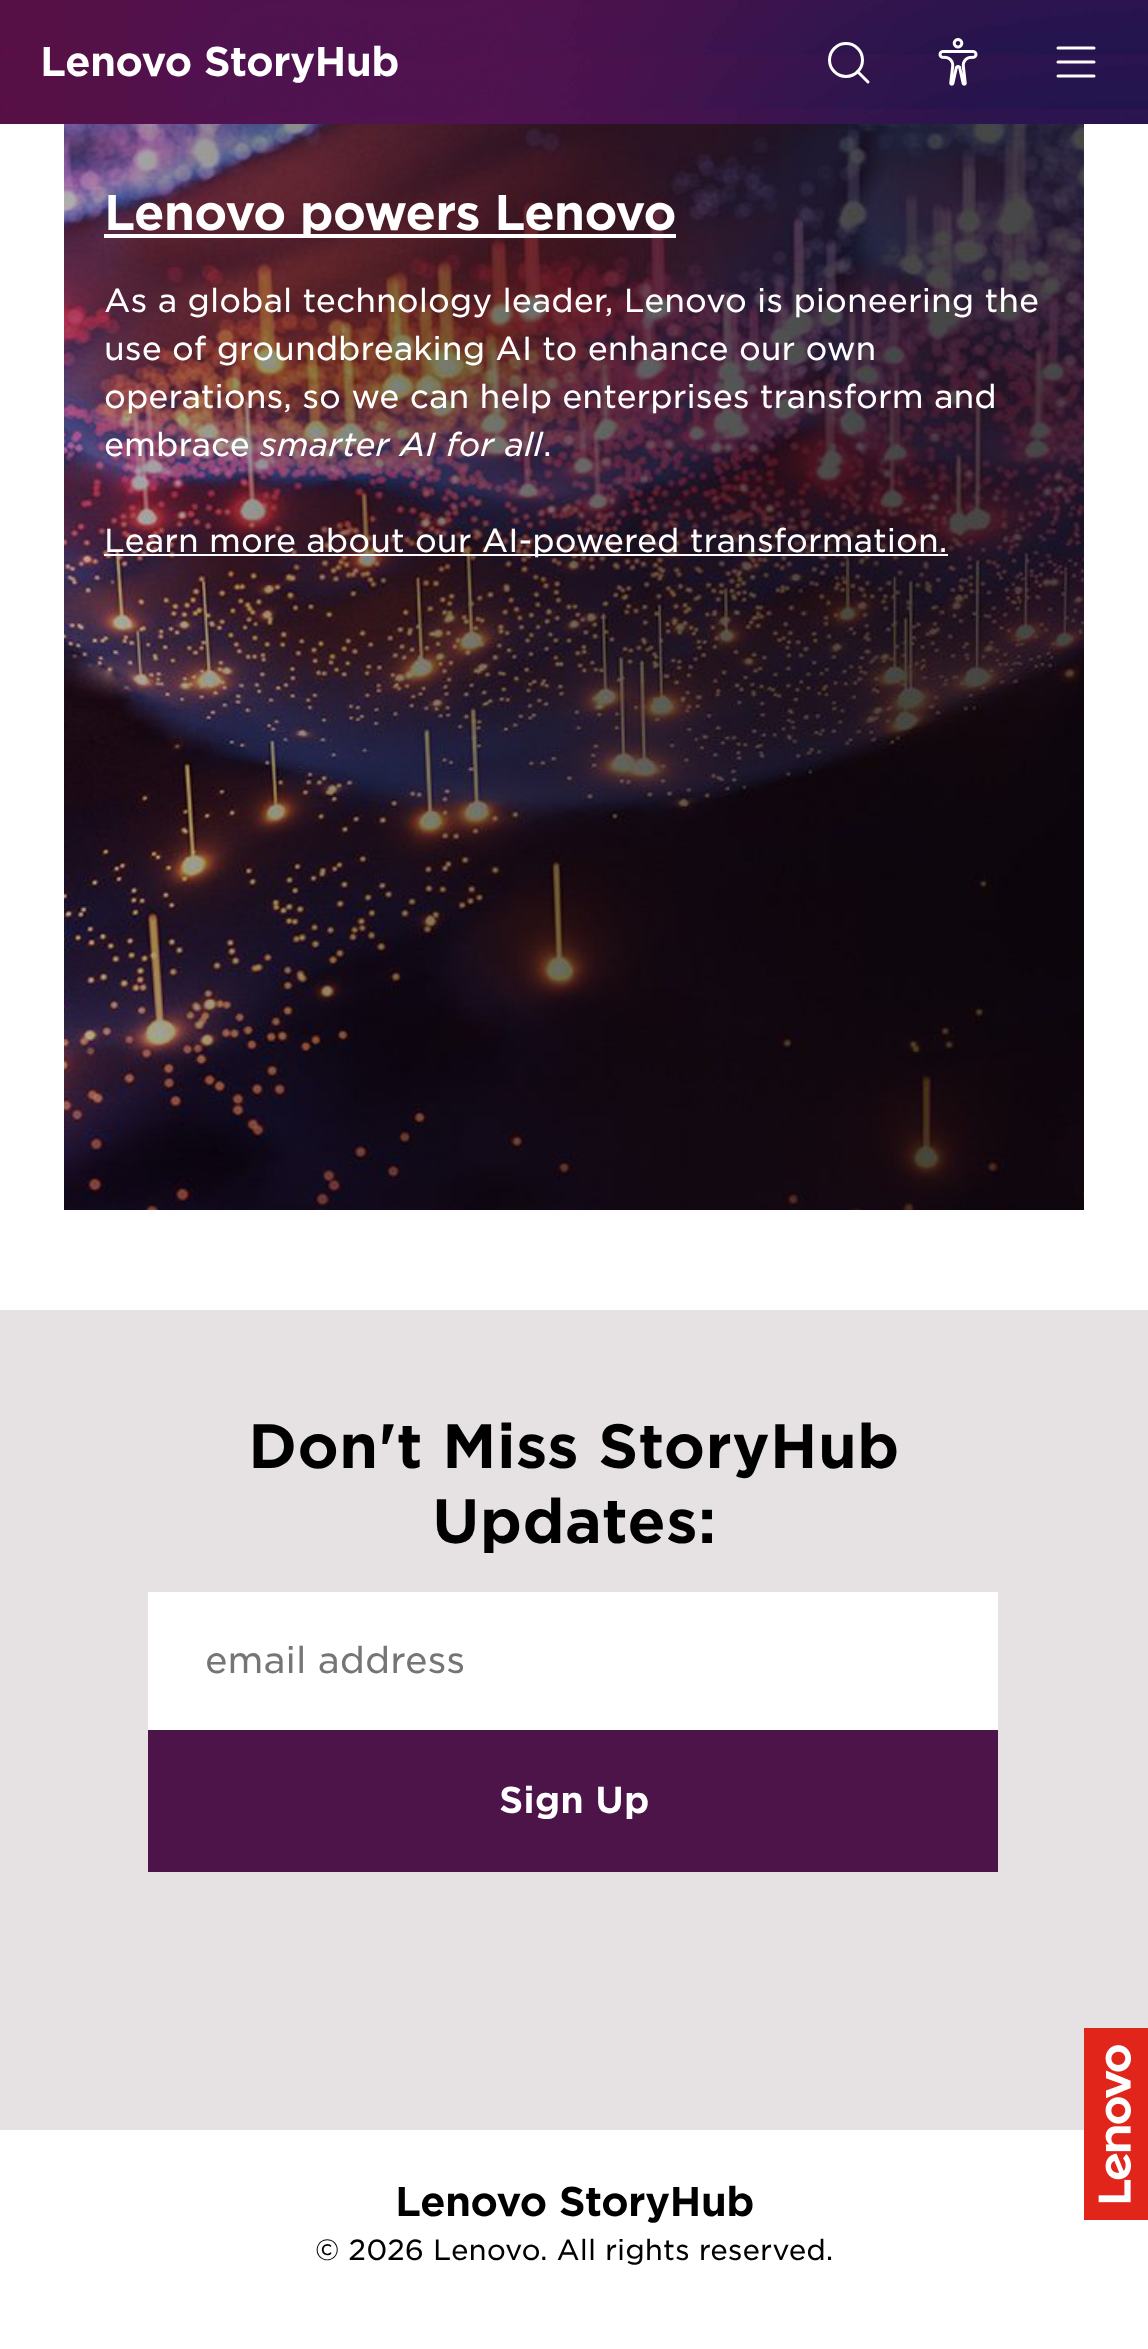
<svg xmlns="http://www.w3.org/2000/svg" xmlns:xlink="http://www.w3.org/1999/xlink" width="1148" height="2349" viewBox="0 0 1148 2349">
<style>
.cls-1{font:bold 40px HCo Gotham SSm;letter-spacing:-0.75px;fill:#ffffff}
.cls-2{font:bold 48px HCo Gotham SSm;letter-spacing:-1px;fill:#ffffff}
.cls-3{font:32px HCo Gotham SSm;fill:#ffffff}
.cls-4{font:italic 32px HCo Gotham SSm;fill:#ffffff}
.cls-5{font:bold 60px HCo Gotham SSm;fill:#000000}
.cls-6{font:36px HCo Gotham SSm;fill:#757575}
.cls-7{font:bold 36px HCo Gotham SSm;fill:#ffffff}
.cls-8{font:bold 40px HCo Gotham SSm;letter-spacing:-0.75px;fill:#000000}
.cls-9{font:28px HCo Gotham SSm;fill:#000000}
</style>
<rect width="100%" height="100%" fill="#ffffff"/>
<image xlink:href="image0.png" x="0" y="0" width="1148" height="124"/>
<circle fill="none" stroke="#ffffff" stroke-width="3" cx="846" cy="60" r="16.5"/>
<path fill="none" stroke="#ffffff" stroke-width="3" stroke-linecap="round" stroke-linejoin="round" d="M868 82L857.5 71.5"/>
<image xlink:href="image1.png" x="938" y="38" width="40" height="48"/>
<path fill="none" stroke="#ffffff" stroke-width="3" stroke-linecap="round" d="M1058 48H1094M1058 62H1094M1058 76H1094"/>
<image xlink:href="image2.png" x="64" y="124" width="1020" height="1086"/>
<rect fill="#ffffff" x="104" y="234" width="572" height="4"/>
<rect fill="#ffffff" x="104" y="554" width="844" height="2"/>
<rect fill="#e6e2e4" x="0" y="1310" width="1148" height="820"/>
<rect fill="#ffffff" x="148" y="1592" width="850" height="138"/>
<rect fill="#4d144a" x="148" y="1730" width="850" height="142"/>
<rect fill="#e1251b" x="1084" y="2028" width="64" height="192"/>
<image xlink:href="image3.png" x="1098" y="2045" width="33" height="158"/>
<text class="cls-1" x="40" y="76">Lenovo StoryHub</text>
<text class="cls-2" x="104" y="230">Lenovo powers Lenovo</text>
<text class="cls-3"><tspan x="104" y="312">As a global technology leader, Lenovo is pioneering the</tspan><tspan x="104" y="360">use of groundbreaking AI to enhance our own</tspan><tspan x="104" y="408">operations, so we can help enterprises transform and</tspan><tspan x="104" y="456">embrace</tspan></text>
<text class="cls-4" x="260" y="456">smarter AI for all</text>
<text class="cls-3" x="543" y="456">.</text>
<text class="cls-3" x="104" y="552">Learn more about our AI-powered transformation.</text>
<text class="cls-5" x="248" y="1468">Don't Miss StoryHub</text>
<text class="cls-5" x="432" y="1543">Updates:</text>
<text class="cls-6" x="205" y="1673">email address</text>
<text class="cls-7" x="499" y="1813">Sign Up</text>
<text class="cls-8" x="395" y="2216">Lenovo StoryHub</text>
<text class="cls-9" x="315" y="2260">© 2026 Lenovo. All rights reserved.</text>
</svg>
